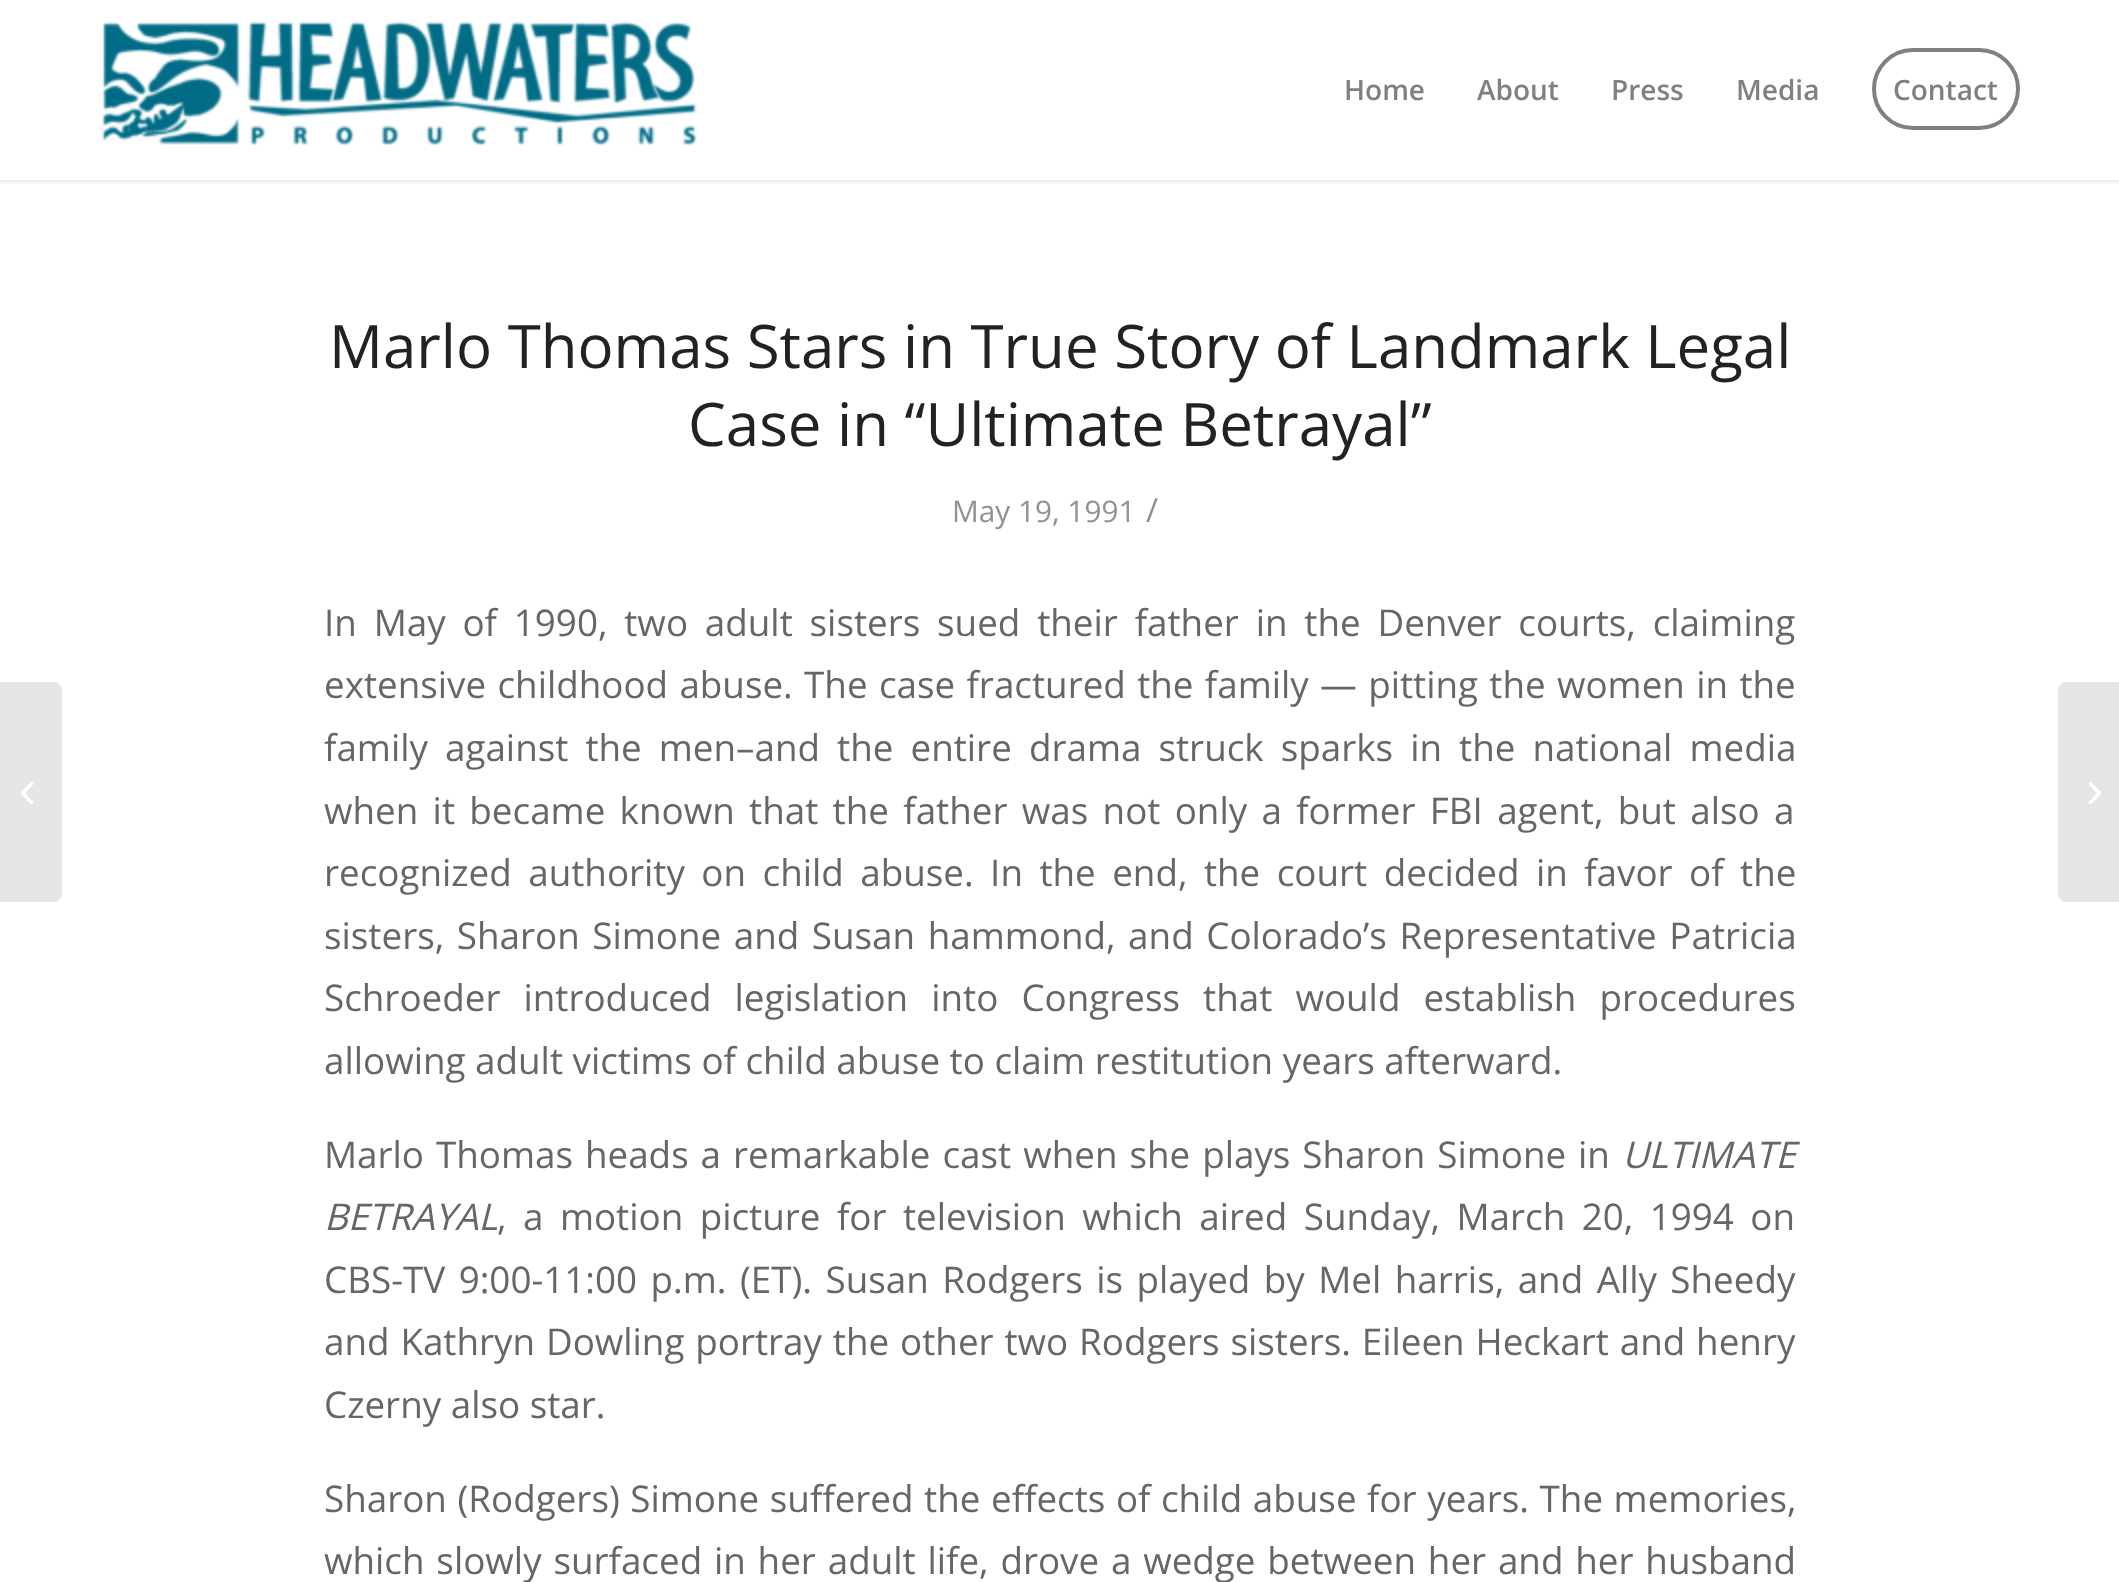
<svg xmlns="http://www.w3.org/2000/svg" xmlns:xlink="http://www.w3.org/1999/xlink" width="2119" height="1582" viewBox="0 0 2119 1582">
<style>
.cls-1{font:600 28px Open Sans;fill:#808080}
.cls-2{font:60px Open Sans;fill:#222222}
.cls-3{font:29.75px Open Sans;fill:#919191}
.cls-4{font:33px Open Sans;fill:#919191}
.cls-5{font:36.8px Open Sans;fill:#666666}
.cls-6{font:italic 36.8px Open Sans;fill:#666666}
</style>
<defs>
<clipPath id="clip1"><rect x="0" y="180" width="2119" height="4"/></clipPath>
</defs>
<rect width="100%" height="100%" fill="#ffffff"/>
<g clip-path="url(#clip1)">
<rect fill="#000000" fill-opacity="0.1" filter="blur(2px)" x="-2" y="-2" width="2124" height="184"/>
</g>
<image xlink:href="image0.png" x="101" y="21" width="596" height="125"/>
<rect fill="none" stroke="#808080" stroke-width="4" x="1874" y="50" width="144" height="78" rx="39"/>
<path fill="#e6e6e6" d="M0 682H54C58.5 682 62 685.5 62 690V894C62 898.5 58.5 902 54 902H0Z"/>
<image xlink:href="image1.png" x="20" y="782" width="14" height="23"/>
<path fill="#e6e6e6" d="M2066 682H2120V902H2066C2061.5 902 2058 898.5 2058 894V690C2058 685.5 2061.5 682 2066 682Z"/>
<image xlink:href="image2.png" x="2088" y="782" width="14" height="23"/>
<text class="cls-1" x="1344" y="100">Home</text>
<text class="cls-1" x="1477" y="100">About</text>
<text class="cls-1" x="1611" y="100">Press</text>
<text class="cls-1" x="1736" y="100">Media</text>
<text class="cls-1" x="1893" y="100">Contact</text>
<text class="cls-2" x="329" y="368">Marlo Thomas Stars in True Story of Landmark Legal</text>
<text class="cls-2" x="688" y="446">Case in “Ultimate Betrayal”</text>
<text class="cls-3" x="952" y="522">May 19, 1991</text>
<text class="cls-4" x="1146" y="522">/</text>
<text class="cls-5"><tspan x="324" y="636" word-spacing="7.25">In May of 1990, two adult sisters sued their father in the Denver courts, claiming</tspan><tspan x="324" y="698" word-spacing="1.75">extensive childhood abuse. The case fractured the family — pitting the women in the</tspan><tspan x="324" y="761" word-spacing="7.5">family against the men–and the entire drama struck sparks in the national media</tspan><tspan x="324" y="824" word-spacing="4.75">when it became known that the father was not only a former FBI agent, but also a</tspan><tspan x="324" y="886" word-spacing="6.9">recognized authority on child abuse. In the end, the court decided in favor of the</tspan><tspan x="324" y="949" word-spacing="3">sisters, Sharon Simone and Susan hammond, and Colorado’s Representative Patricia</tspan><tspan x="324" y="1011" word-spacing="13.5">Schroeder introduced legislation into Congress that would establish procedures</tspan><tspan x="324" y="1074">allowing adult victims of child abuse to claim restitution years afterward.</tspan></text>
<text class="cls-5" x="324" y="1168" word-spacing="2.4">Marlo Thomas heads a remarkable cast when she plays Sharon Simone in</text>
<text class="cls-6" x="1622" y="1168">ULTIMATE</text>
<text class="cls-6" x="324" y="1230">BETRAYAL</text>
<text class="cls-5" x="497" y="1230" word-spacing="6.9">, a motion picture for television which aired Sunday, March 20, 1994 on</text>
<text class="cls-5"><tspan x="324" y="1293" word-spacing="3.9">CBS-TV 9:00-11:00 p.m. (ET). Susan Rodgers is played by Mel harris, and Ally Sheedy</tspan><tspan x="324" y="1355" word-spacing="1.3">and Kathryn Dowling portray the other two Rodgers sisters. Eileen Heckart and henry</tspan><tspan x="324" y="1418">Czerny also star.</tspan></text>
<text class="cls-5"><tspan x="324" y="1512" word-spacing="1">Sharon (Rodgers) Simone suffered the effects of child abuse for years. The memories,</tspan><tspan x="324" y="1574" word-spacing="2.25">which slowly surfaced in her adult life, drove a wedge between her and her husband</tspan></text>
</svg>
